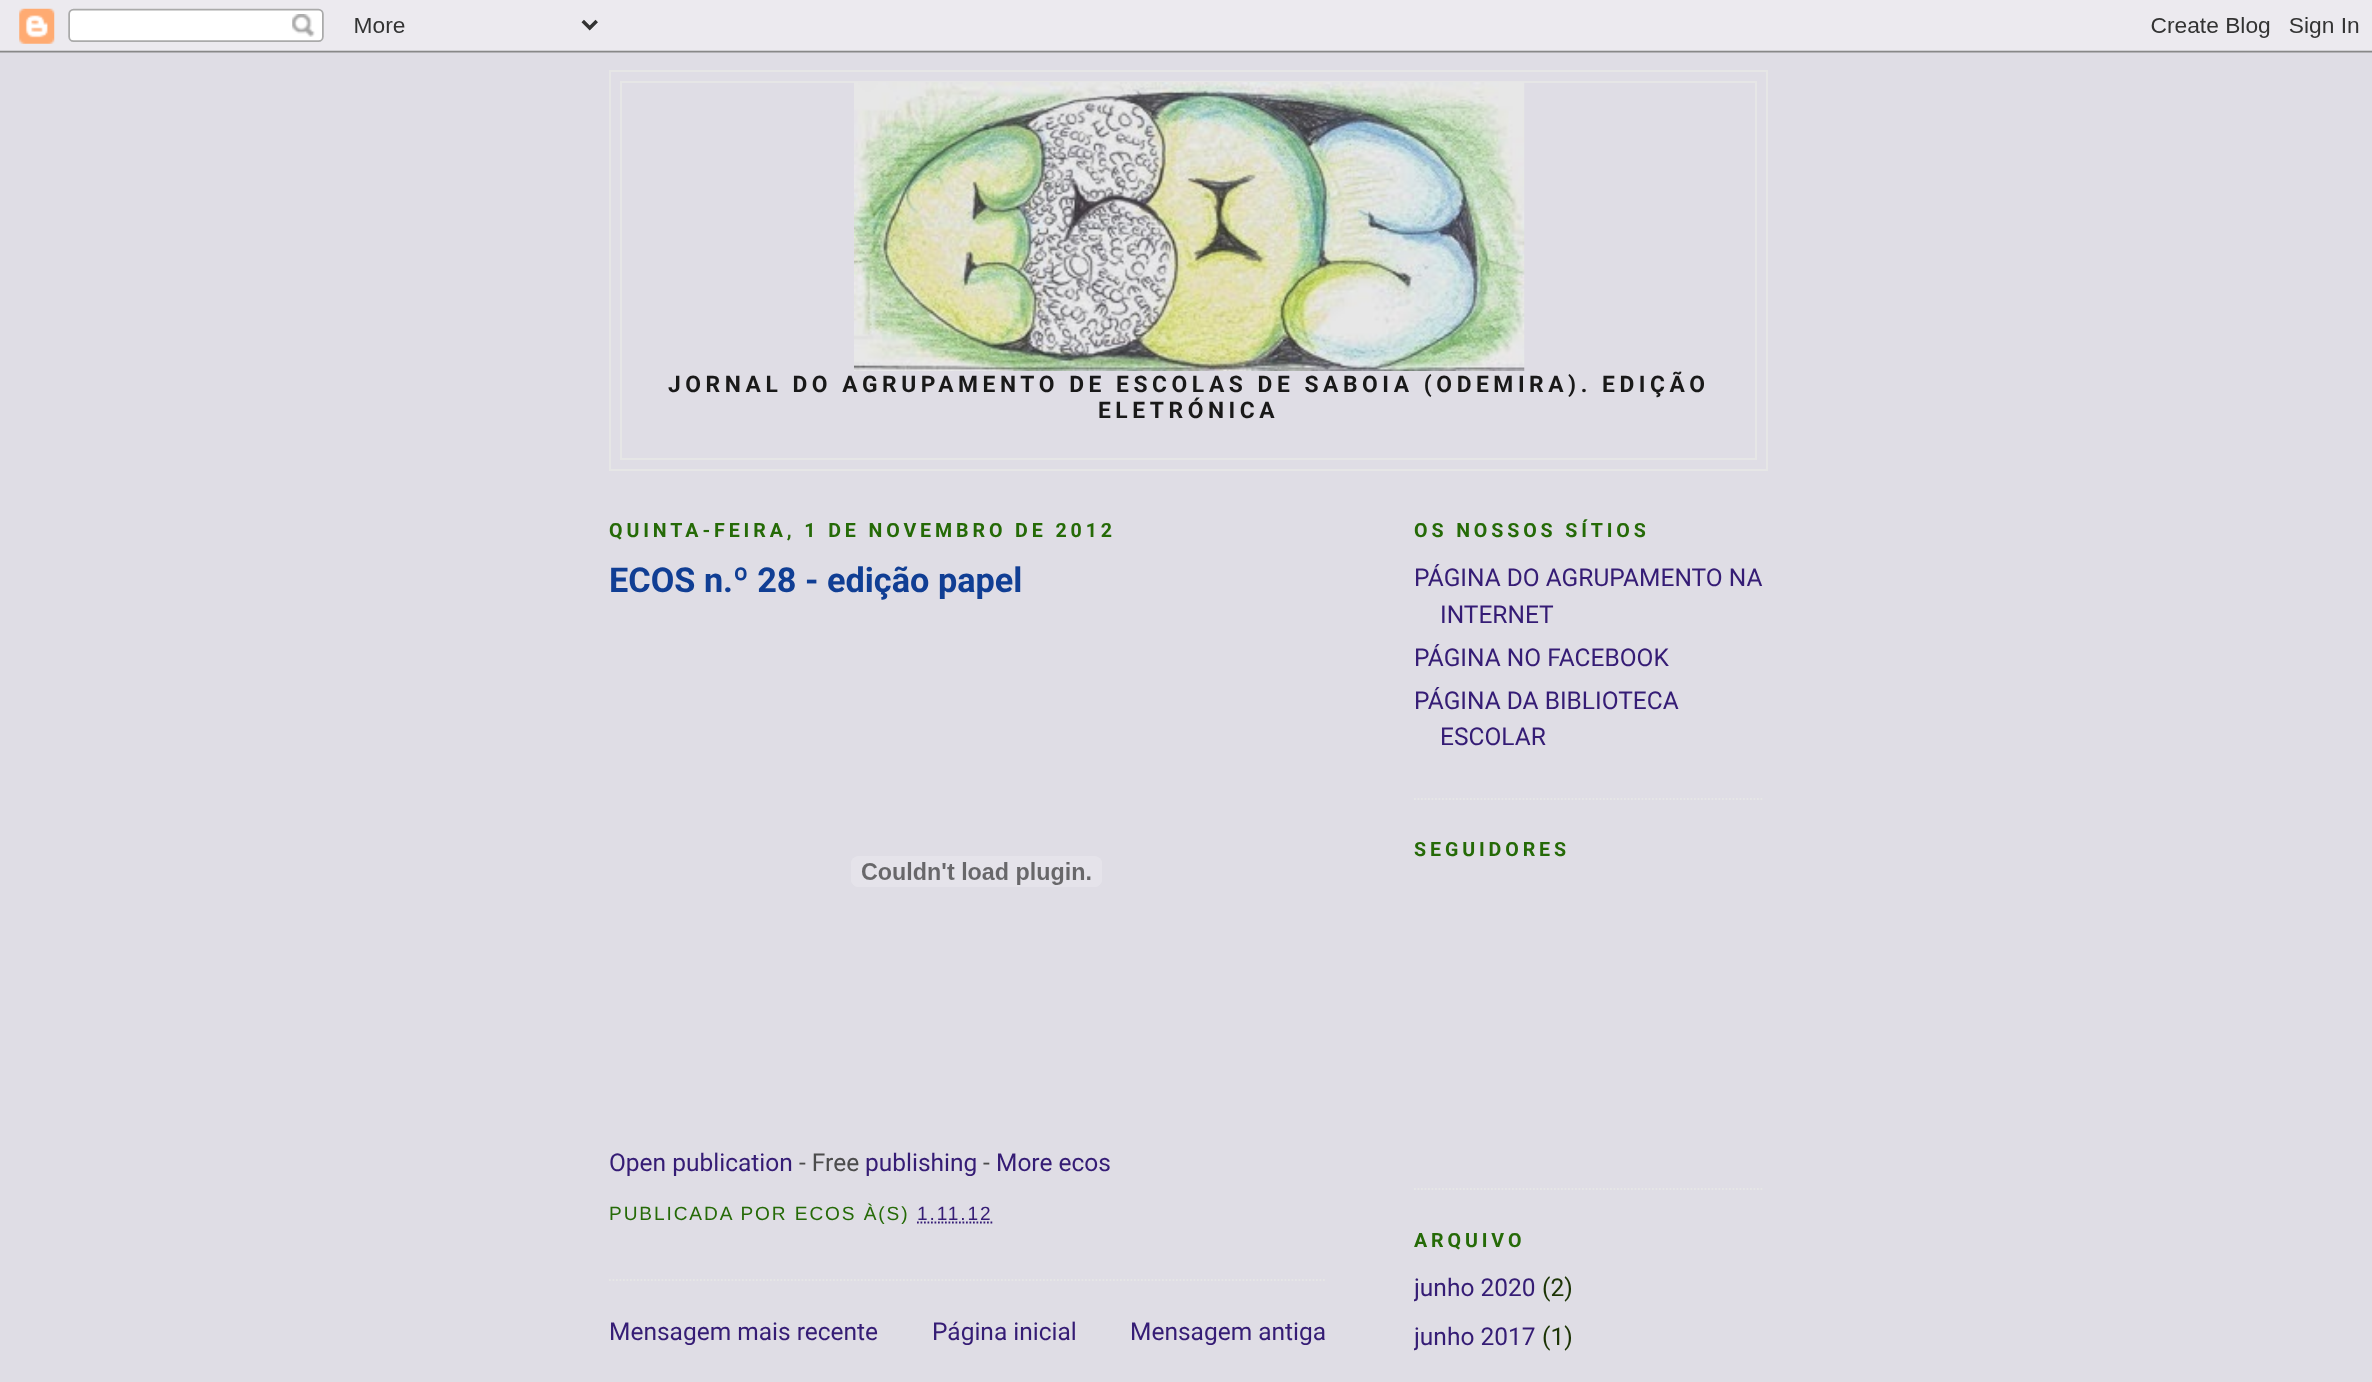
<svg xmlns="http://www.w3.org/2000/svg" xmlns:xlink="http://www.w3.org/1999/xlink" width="2372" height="1382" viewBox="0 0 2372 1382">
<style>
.cls-1{font:bold 22.8px Roboto;letter-spacing:4.55px;fill:#191919}
.cls-2{font:bold 19.6px Roboto;letter-spacing:3.9px;fill:#256a07}
.cls-3{font:bold 34.25px Roboto;fill:#103e94}
.cls-4{font:24.5px Roboto;fill:#351c75}
.cls-5{font:24.5px Roboto;fill:#4c4c4c}
.cls-6{font:19.1px Liberation Sans;letter-spacing:1.9px;fill:#256a07}
.cls-7{font:19.1px Liberation Sans;letter-spacing:1.9px;fill:#351c75}
.cls-8{font:24.5px Roboto;fill:#1c3405}
</style>
<defs>
<clipPath id="clip1"><rect x="1414" y="488" width="350" height="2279"/></clipPath>
</defs>
<rect width="100%" height="100%" fill="#dfdde5"/>
<image xlink:href="image0.png" x="0" y="0" width="2372" height="53"/>
<rect fill="none" stroke="#e6e6e6" stroke-width="2" x="610" y="71" width="1157" height="399"/>
<rect fill="none" stroke="#e6e6e6" stroke-width="2" x="621" y="82" width="1135" height="377"/>
<image xlink:href="image1.png" x="854" y="82" width="671" height="289"/>
<path fill="none" stroke="#e6e6e6" stroke-width="1.8" stroke-dasharray="1.75 1.75" d="M609 1280H1326.5"/>
<image xlink:href="image2.png" x="851" y="856" width="251" height="31"/>
<path fill="none" stroke="#351c75" stroke-width="1.8" stroke-dasharray="1.75 1.75" d="M917 1222.5H992.5"/>
<path fill="none" stroke="#e6e6e6" stroke-width="1.8" stroke-dasharray="1.75 1.75" d="M1414 799H1764"/>
<path fill="none" stroke="#e6e6e6" stroke-width="1.8" stroke-dasharray="1.75 1.75" d="M1414 1189H1764"/>
<text class="cls-1" x="668" y="392">JORNAL DO AGRUPAMENTO DE ESCOLAS DE SABOIA (ODEMIRA). EDIÇÃO</text>
<text class="cls-1" x="1098" y="418">ELETRÓNICA</text>
<text class="cls-2" x="609" y="537">QUINTA-FEIRA, 1 DE NOVEMBRO DE 2012</text>
<text class="cls-3" x="609" y="592">ECOS n.º 28 - edição papel</text>
<text class="cls-4" x="609" y="1171">Open publication</text>
<text class="cls-5" x="799" y="1171">- Free</text>
<text class="cls-4" x="865" y="1171">publishing</text>
<text class="cls-5" x="983" y="1171">-</text>
<text class="cls-4" x="996" y="1171">More ecos</text>
<text class="cls-6" x="609" y="1220">PUBLICADA POR ECOS À(S)</text>
<text class="cls-7" x="917" y="1220">1.11.12</text>
<text class="cls-4" x="609" y="1340">Mensagem mais recente</text>
<text class="cls-4" x="932" y="1340">Página inicial</text>
<text class="cls-4" x="1130" y="1340">Mensagem antiga</text>
<text class="cls-2" x="1414" y="537">OS NOSSOS SÍTIOS</text>
<text class="cls-4" x="1414" y="586">PÁGINA DO AGRUPAMENTO NA</text>
<text class="cls-4" x="1440" y="623">INTERNET</text>
<text class="cls-4"><tspan x="1414" y="666">PÁGINA NO FACEBOOK</tspan><tspan x="1414" y="709">PÁGINA DA BIBLIOTECA</tspan></text>
<text class="cls-4" x="1440" y="745">ESCOLAR</text>
<text class="cls-2" x="1414" y="856">SEGUIDORES</text>
<text class="cls-2" x="1414" y="1247">ARQUIVO</text>
<g clip-path="url(#clip1)">
<text class="cls-4" x="1414" y="1296">junho 2020</text>
</g>
<text class="cls-8" x="1542" y="1296">(2)</text>
<g clip-path="url(#clip1)">
<text class="cls-4" x="1414" y="1345">junho 2017</text>
</g>
<text class="cls-8" x="1542" y="1345">(1)</text>
</svg>
